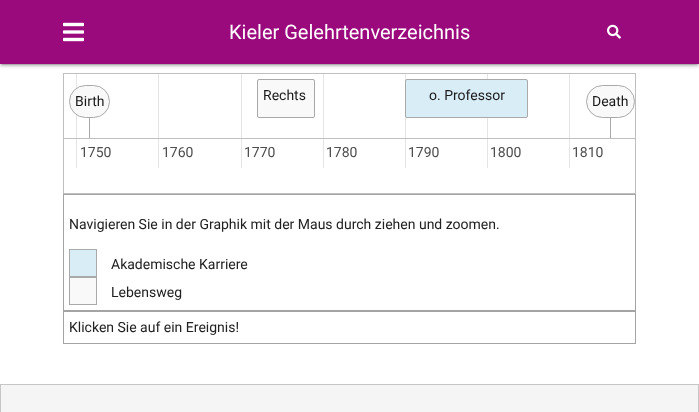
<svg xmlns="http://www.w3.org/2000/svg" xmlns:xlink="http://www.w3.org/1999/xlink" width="699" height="412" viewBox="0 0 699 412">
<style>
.cls-1{font:20px Roboto;fill:#ffffff}
.cls-2{font:14px Roboto;fill:#1a1a1a}
.cls-3{font:14px Roboto;fill:#4d4d4d}
.cls-4{font:14px Roboto;fill:#212121}
</style>
<defs>
<clipPath id="clip1"><rect x="64" y="74" width="571" height="119"/></clipPath>
</defs>
<rect width="100%" height="100%" fill="#ffffff"/>
<rect fill="none" stroke="#bfbfbf" x="63.5" y="73.5" width="572" height="120"/>
<rect fill="#e5e5e5" x="76" y="74" width="1" height="94"/>
<rect fill="#e5e5e5" x="158" y="74" width="1" height="94"/>
<rect fill="#e5e5e5" x="241" y="74" width="1" height="94"/>
<rect fill="#e5e5e5" x="323" y="74" width="1" height="94"/>
<rect fill="#e5e5e5" x="405" y="74" width="1" height="94"/>
<rect fill="#e5e5e5" x="487" y="74" width="1" height="94"/>
<rect fill="#e5e5e5" x="569" y="74" width="1" height="94"/>
<g clip-path="url(#clip1)">
<rect fill="none" stroke="#bfbfbf" x="63.5" y="73.5" width="572" height="65"/>
</g>
<rect fill="#000000" fill-opacity="0.2" filter="blur(2.5px)" x="0" y="1" width="699" height="64"/>
<rect fill="#000000" fill-opacity="0.12" filter="blur(0.5px)" x="2" y="5" width="695" height="60"/>
<rect fill="#000000" fill-opacity="0.14" filter="blur(1px)" x="0" y="2" width="699" height="64"/>
<rect fill="#9b0a7d" x="0" y="0" width="699" height="64"/>
<image xlink:href="image0.png" x="63" y="22" width="21" height="20"/>
<image xlink:href="image1.png" x="607" y="24" width="14" height="15"/>
<rect fill="#f9f9f9" stroke="#a9a9a9" x="69.5" y="85.5" width="40" height="32" rx="16"/>
<rect fill="#f9f9f9" stroke="#a9a9a9" x="257.5" y="79.5" width="57" height="38" rx="1.5"/>
<rect fill="#d9edf7" stroke="#a9a9a9" x="405.5" y="79.5" width="122" height="38" rx="1.5"/>
<rect fill="#f9f9f9" stroke="#a9a9a9" x="586.5" y="85.5" width="48" height="32" rx="16"/>
<rect fill="#a9a9a9" x="89" y="118" width="1" height="20"/>
<rect fill="#a9a9a9" x="610" y="118" width="1" height="20"/>
<rect fill="none" stroke="#a4a4a4" x="63.5" y="194.5" width="572" height="116"/>
<rect fill="#d9edf7" stroke="#a9a9a9" x="69.5" y="249.5" width="27" height="27"/>
<rect fill="#f9f9f9" stroke="#a9a9a9" x="69.5" y="277.5" width="27" height="27"/>
<rect fill="none" stroke="#a4a4a4" x="63.5" y="311.5" width="572" height="32"/>
<rect fill="#f5f5f5" stroke="#c6c6c6" x="0.5" y="384.5" width="698" height="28"/>
<text class="cls-1" x="229" y="39">Kieler Gelehrtenverzeichnis</text>
<text class="cls-2" x="75" y="106">Birth</text>
<text class="cls-2" x="263" y="100">Rechts</text>
<text class="cls-2" x="429" y="100">o. Professor</text>
<text class="cls-2" x="592" y="106">Death</text>
<text class="cls-3" x="80" y="157">1750</text>
<text class="cls-3" x="162" y="157">1760</text>
<text class="cls-3" x="244" y="157">1770</text>
<text class="cls-3" x="326" y="157">1780</text>
<text class="cls-3" x="408" y="157">1790</text>
<text class="cls-3" x="490" y="157">1800</text>
<text class="cls-3" x="572" y="157">1810</text>
<text class="cls-4" x="69" y="229">Navigieren Sie in der Graphik mit der Maus durch ziehen und zoomen.</text>
<text class="cls-4" x="111" y="269">Akademische Karriere</text>
<text class="cls-4" x="111" y="297">Lebensweg</text>
<text class="cls-4" x="69" y="332">Klicken Sie auf ein Ereignis!</text>
</svg>
